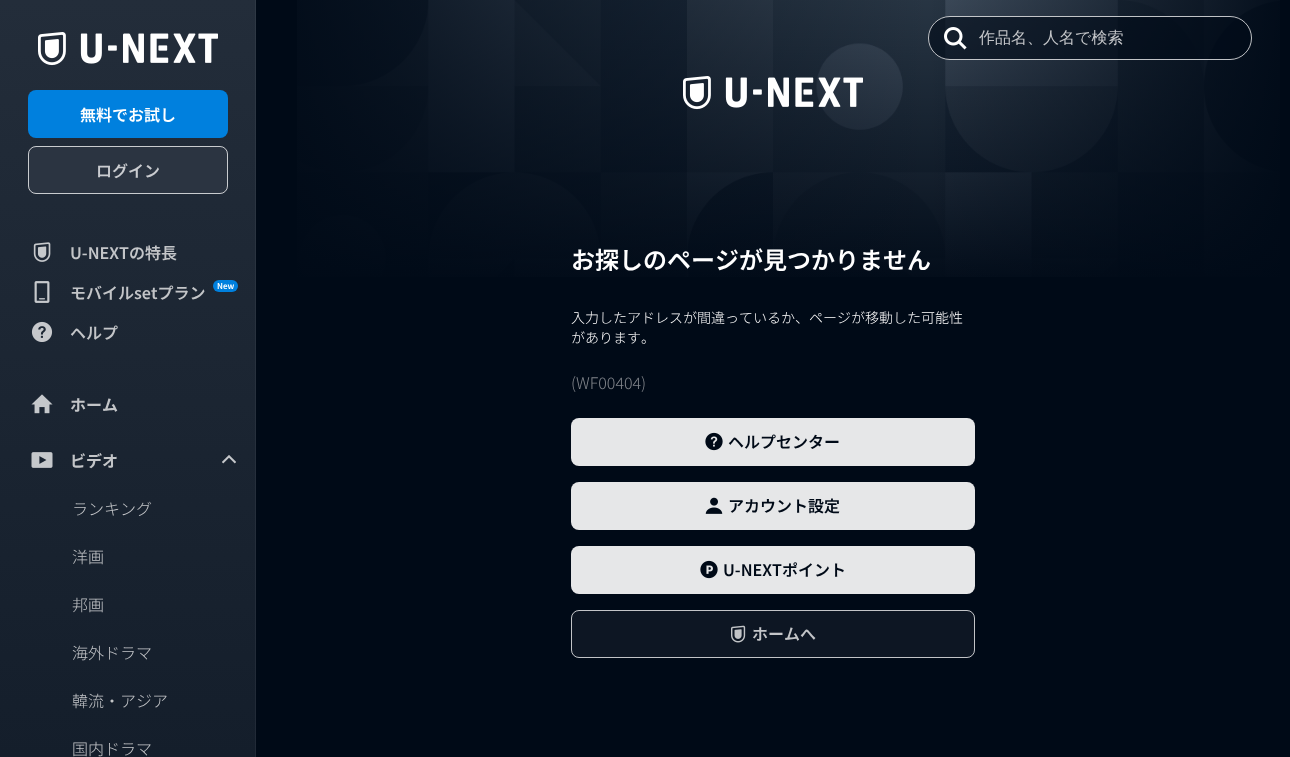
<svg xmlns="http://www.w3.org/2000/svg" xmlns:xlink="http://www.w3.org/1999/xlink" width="1290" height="757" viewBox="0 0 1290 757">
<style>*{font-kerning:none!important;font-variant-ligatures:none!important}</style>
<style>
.cls-1{font:500 16px WenQuanYi Zen Hei;fill:#c3c5c8}
.cls-2{font:600 16px Noto Sans JP;fill:#ffffff}
.cls-3{font:600 16px Noto Sans JP;fill:#caccd0}
.cls-4{font:600 16px Noto Sans JP;fill:#c3c5c8}
.cls-5{font:600 8px Noto Sans JP;fill:#ffffff}
.cls-6{font:bold 16px Noto Sans JP;fill:#c3c5c8}
.cls-7{font:300 16px Noto Sans JP;fill:#c3c5c8}
.cls-8{font:600 24px Noto Sans JP;fill:#ffffff}
.cls-9{font:300 14px Noto Sans JP;fill:#ffffff}
.cls-10{font:300 16px Noto Sans JP;fill:#80858b}
.cls-11{font:600 16px Noto Sans JP;fill:#000a17}
</style>
<defs>
<linearGradient id="g1" gradientUnits="userSpaceOnUse" x1="127" y1="0" x2="128" y2="757"><stop offset="0" stop-color="#232d3a"/><stop offset="1" stop-color="#141e2b"/></linearGradient>
<linearGradient id="g2" gradientUnits="userSpaceOnUse" x1="127" y1="0" x2="128" y2="757"><stop offset="0" stop-color="#2e3844"/><stop offset="1" stop-color="#202936"/></linearGradient>
</defs>
<rect width="100%" height="100%" fill="#000a17"/>
<image xlink:href="image8.png" x="297" y="0" width="983" height="277"/>
<rect fill="#000a17" fill-opacity="0.6" x="928" y="16" width="324" height="44" rx="22"/>
<rect fill="none" stroke="#ffffff" stroke-opacity="0.75" x="928.5" y="16.5" width="323" height="43" rx="21.5"/>
<image xlink:href="image0.png" x="944" y="27" width="23" height="23"/>
<rect fill="url(#g1)" x="0" y="0" width="255" height="757"/>
<rect fill="url(#g2)" x="255" y="0" width="1" height="757"/>
<image xlink:href="image1.png" x="38" y="32" width="180" height="34"/>
<rect fill="#0080de" x="28" y="90" width="200" height="48" rx="8"/>
<rect fill="#2b3441" x="28" y="146" width="200" height="48" rx="8"/>
<rect fill="none" stroke="#ffffff" stroke-opacity="0.75" x="28.5" y="146.5" width="199" height="47" rx="7.5"/>
<image xlink:href="image2.png" x="33" y="242" width="18" height="20"/>
<image xlink:href="image3.png" x="34" y="281" width="16" height="22"/>
<rect fill="#0080de" x="213" y="280" width="25" height="12" rx="6"/>
<image xlink:href="image4.png" x="31" y="321" width="22" height="21"/>
<image xlink:href="image5.png" x="31" y="394" width="22" height="20"/>
<image xlink:href="image6.png" x="31" y="452" width="22" height="16"/>
<image xlink:href="image7.png" x="222" y="455" width="14" height="9"/>
<image xlink:href="image9.png" x="683" y="76" width="180" height="34"/>
<rect fill="#e6e7e8" x="571" y="418" width="404" height="48" rx="8"/>
<image xlink:href="image10.png" x="705" y="432" width="18" height="19"/>
<rect fill="#e6e7e8" x="571" y="482" width="404" height="48" rx="8"/>
<image xlink:href="image11.png" x="705" y="497" width="18" height="17"/>
<rect fill="#e6e7e8" x="571" y="546" width="404" height="48" rx="8"/>
<image xlink:href="image12.png" x="700" y="560" width="18" height="19"/>
<rect fill="#0d1623" x="571" y="610" width="404" height="48" rx="8"/>
<rect fill="none" stroke="#ffffff" stroke-opacity="0.75" x="571.5" y="610.5" width="403" height="47" rx="7.5"/>
<image xlink:href="image13.png" x="731" y="625" width="15" height="18"/>
<text class="cls-1" x="979" y="43">作品名、人名で検索</text>
<text class="cls-2" x="80" y="121">無料でお試し</text>
<text class="cls-3" x="96" y="177">ログイン</text>
<text class="cls-4" x="70" y="259">U-NEXTの特長</text>
<text class="cls-4" x="70" y="299">モバイルsetプラン</text>
<text class="cls-5" x="217" y="289">New</text>
<text class="cls-4" x="70" y="339">ヘルプ</text>
<text class="cls-6" x="70" y="411">ホーム</text>
<text class="cls-6" x="70" y="467">ビデオ</text>
<text class="cls-7" x="72" y="515">ランキング</text>
<text class="cls-7" x="72" y="563">洋画</text>
<text class="cls-7" x="72" y="611">邦画</text>
<text class="cls-7" x="72" y="659">海外ドラマ</text>
<text class="cls-7" x="72" y="707">韓流・アジア</text>
<text class="cls-7" x="72" y="755">国内ドラマ</text>
<text class="cls-8" x="571" y="269">お探しのページが見つかりません</text>
<text class="cls-9"><tspan x="571" y="323">入力したアドレスが間違っているか、ページが移動した可能性</tspan><tspan x="571" y="343">があります。</tspan></text>
<text class="cls-10" x="571" y="389">(WF00404)</text>
<text class="cls-11" x="728" y="448">ヘルプセンター</text>
<text class="cls-11" x="728" y="512">アカウント設定</text>
<text class="cls-11" x="723" y="576">U-NEXTポイント</text>
<text class="cls-4" x="752" y="640">ホームへ</text>
</svg>
